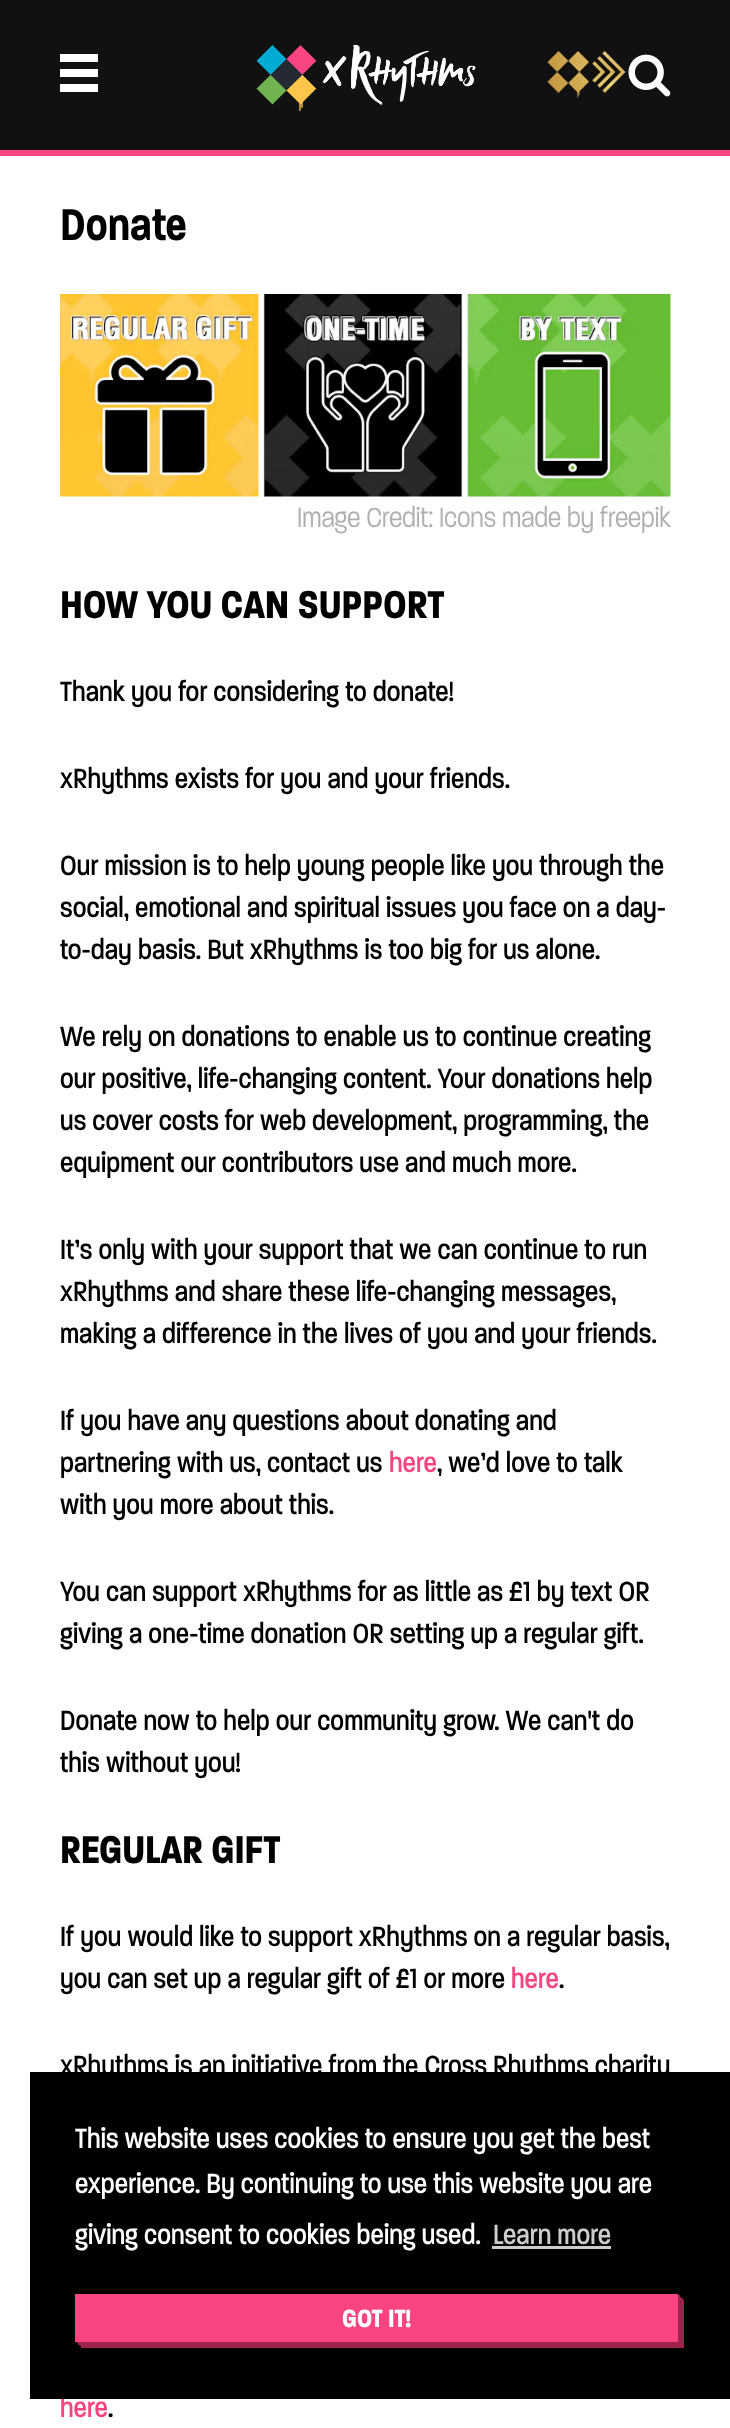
<svg xmlns="http://www.w3.org/2000/svg" xmlns:xlink="http://www.w3.org/1999/xlink" width="730" height="2428" viewBox="0 0 730 2428">
<style>
.cls-1{font:600 48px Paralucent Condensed;fill:#000000}
.cls-2{font:300 30px Paralucent Condensed;fill:#b0b0b0}
.cls-3{font:bold 42px Paralucent Condensed;fill:#000000}
.cls-4{font:500 30px Paralucent Condensed;fill:#000000}
.cls-5{font:500 30px Paralucent Condensed;fill:#f84581}
.cls-6{font:500 30px Paralucent Condensed;fill:#ffffff}
.cls-7{font:500 30px Paralucent Condensed;fill:#cccccc}
.cls-8{font:bold 27px Paralucent Condensed;fill:#ffffff}
</style>
<rect width="100%" height="100%" fill="#ffffff"/>
<rect fill="#111111" x="0" y="0" width="730" height="150"/>
<rect fill="#f84581" x="0" y="150" width="730" height="6"/>
<rect fill="#ffffff" x="60" y="54" width="38" height="8"/>
<rect fill="#ffffff" x="60" y="69" width="38" height="8"/>
<rect fill="#ffffff" x="60" y="84" width="38" height="8"/>
<image xlink:href="image0.png" x="256" y="45" width="220" height="66"/>
<image xlink:href="image1.png" x="547" y="51" width="79" height="47"/>
<image xlink:href="image2.png" x="628" y="54" width="43" height="43"/>
<image xlink:href="image3.png" x="60" y="294" width="611" height="203"/>
<text class="cls-1" x="60" y="240">Donate</text>
<text class="cls-2" x="297" y="527">Image Credit: Icons made by freepik</text>
<text class="cls-3" x="60" y="618">HOW YOU CAN SUPPORT</text>
<text class="cls-4" x="60" y="701">Thank you for considering to donate!</text>
<text class="cls-4" x="60" y="788">xRhythms exists for you and your friends.</text>
<text class="cls-4"><tspan x="60" y="875">Our mission is to help young people like you through the</tspan><tspan x="60" y="917">social, emotional and spiritual issues you face on a day-</tspan><tspan x="60" y="959">to-day basis. But xRhythms is too big for us alone.</tspan></text>
<text class="cls-4"><tspan x="60" y="1046">We rely on donations to enable us to continue creating</tspan><tspan x="60" y="1088">our positive, life-changing content. Your donations help</tspan><tspan x="60" y="1130">us cover costs for web development, programming, the</tspan><tspan x="60" y="1172">equipment our contributors use and much more.</tspan></text>
<text class="cls-4"><tspan x="60" y="1259">It’s only with your support that we can continue to run</tspan><tspan x="60" y="1301">xRhythms and share these life-changing messages,</tspan><tspan x="60" y="1343">making a difference in the lives of you and your friends.</tspan></text>
<text class="cls-4"><tspan x="60" y="1430">If you have any questions about donating and</tspan><tspan x="60" y="1472">partnering with us, contact us</tspan></text>
<text class="cls-5" x="389" y="1472">here</text>
<text class="cls-4" x="437" y="1472">, we’d love to talk</text>
<text class="cls-4" x="60" y="1514">with you more about this.</text>
<text class="cls-4"><tspan x="60" y="1601">You can support xRhythms for as little as £1 by text OR</tspan><tspan x="60" y="1643">giving a one-time donation OR setting up a regular gift.</tspan></text>
<text class="cls-4"><tspan x="60" y="1730">Donate now to help our community grow. We can't do</tspan><tspan x="60" y="1772">this without you!</tspan></text>
<text class="cls-3" x="60" y="1863">REGULAR GIFT</text>
<text class="cls-4"><tspan x="60" y="1946">If you would like to support xRhythms on a regular basis,</tspan><tspan x="60" y="1988">you can set up a regular gift of £1 or more</tspan></text>
<text class="cls-5" x="511" y="1988">here</text>
<text class="cls-4" x="559" y="1988">.</text>
<text class="cls-4" x="60" y="2075">xRhythms is an initiative from the Cross Rhythms charity</text>
<text class="cls-5" x="60" y="2417">here</text>
<text class="cls-4" x="108" y="2417">.</text>
<rect fill="#000000" x="30" y="2072" width="700" height="327"/>
<text class="cls-6"><tspan x="75" y="2148">This website uses cookies to ensure you get the best</tspan><tspan x="75" y="2193">experience. By continuing to use this website you are</tspan><tspan x="75" y="2244">giving consent to cookies being used.</tspan></text>
<text class="cls-7" x="493" y="2244">Learn more</text>
<rect fill="#cccccc" x="492" y="2246" width="119" height="3"/>
<path fill="#9f224c" d="M81 2342V2348H684V2300H678V2342Z"/>
<path fill="#9f224c" d="M80 2342V2346H683V2298H678V2342Z"/>
<path fill="#9f224c" d="M78 2342V2345H681V2297H678V2342Z"/>
<path fill="#9f224c" d="M77 2342V2343H680V2295H678V2342Z"/>
<rect fill="#f84581" x="75" y="2294" width="603" height="48"/>
<text class="cls-8" x="342" y="2327">GOT IT!</text>
</svg>
